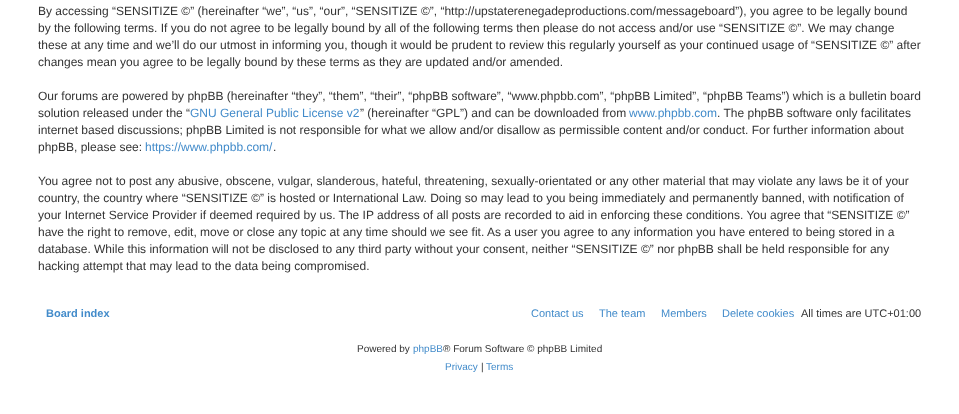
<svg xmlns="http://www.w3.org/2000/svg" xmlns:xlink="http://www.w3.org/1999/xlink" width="959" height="414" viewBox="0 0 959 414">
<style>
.cls-1{font:12px Liberation Sans;fill:#333333}
.cls-2{font:12px Liberation Sans;fill:#428bca}
.cls-3{font:bold 11px Liberation Sans;fill:#428bca}
.cls-4{font:11px Liberation Sans;fill:#428bca}
.cls-5{font:11px Liberation Sans;fill:#333333}
.cls-6{font:10px Liberation Sans;fill:#333333}
.cls-7{font:10px Liberation Sans;fill:#428bca}
</style>
<rect width="100%" height="100%" fill="#ffffff"/>
<text class="cls-1"><tspan x="38" y="15">By accessing “SENSITIZE ©” (hereinafter “we”, “us”, “our”, “SENSITIZE ©”, “http://upstaterenegadeproductions.com/messageboard”), you agree to be legally bound</tspan><tspan x="38" y="32">by the following terms. If you do not agree to be legally bound by all of the following terms then please do not access and/or use “SENSITIZE ©”. We may change</tspan><tspan x="38" y="49">these at any time and we’ll do our utmost in informing you, though it would be prudent to review this regularly yourself as your continued usage of “SENSITIZE ©” after</tspan><tspan x="38" y="66">changes mean you agree to be legally bound by these terms as they are updated and/or amended.</tspan></text>
<text class="cls-1"><tspan x="38" y="100">Our forums are powered by phpBB (hereinafter “they”, “them”, “their”, “phpBB software”, “www.phpbb.com”, “phpBB Limited”, “phpBB Teams”) which is a bulletin board</tspan><tspan x="38" y="117">solution released under the “</tspan></text>
<text class="cls-2" x="190" y="117">GNU General Public License v2</text>
<text class="cls-1" x="360" y="117">” (hereinafter “GPL”) and can be downloaded from</text>
<text class="cls-2" x="629" y="117">www.phpbb.com</text>
<text class="cls-1" x="717" y="117">. The phpBB software only facilitates</text>
<text class="cls-1"><tspan x="38" y="134">internet based discussions; phpBB Limited is not responsible for what we allow and/or disallow as permissible content and/or conduct. For further information about</tspan><tspan x="38" y="151">phpBB, please see:</tspan></text>
<text class="cls-2" x="145" y="151">https://www.phpbb.com/</text>
<text class="cls-1" x="273" y="151">.</text>
<text class="cls-1"><tspan x="38" y="185">You agree not to post any abusive, obscene, vulgar, slanderous, hateful, threatening, sexually-orientated or any other material that may violate any laws be it of your</tspan><tspan x="38" y="202">country, the country where “SENSITIZE ©” is hosted or International Law. Doing so may lead to you being immediately and permanently banned, with notification of</tspan><tspan x="38" y="219">your Internet Service Provider if deemed required by us. The IP address of all posts are recorded to aid in enforcing these conditions. You agree that “SENSITIZE ©”</tspan><tspan x="38" y="236">have the right to remove, edit, move or close any topic at any time should we see fit. As a user you agree to any information you have entered to being stored in a</tspan><tspan x="38" y="253">database. While this information will not be disclosed to any third party without your consent, neither “SENSITIZE ©” nor phpBB shall be held responsible for any</tspan><tspan x="38" y="270">hacking attempt that may lead to the data being compromised.</tspan></text>
<text class="cls-3" x="46" y="317">Board index</text>
<text class="cls-4" x="531" y="317">Contact us</text>
<text class="cls-4" x="599" y="317">The team</text>
<text class="cls-4" x="661" y="317">Members</text>
<text class="cls-4" x="722" y="317">Delete cookies</text>
<text class="cls-5" x="801" y="317">All times are UTC+01:00</text>
<text class="cls-6" x="357" y="352">Powered by</text>
<text class="cls-7" x="413" y="352">phpBB</text>
<text class="cls-6" x="443" y="352">® Forum Software © phpBB Limited</text>
<text class="cls-7" x="445" y="370">Privacy</text>
<text class="cls-6" x="481" y="370">|</text>
<text class="cls-7" x="486" y="370">Terms</text>
</svg>
